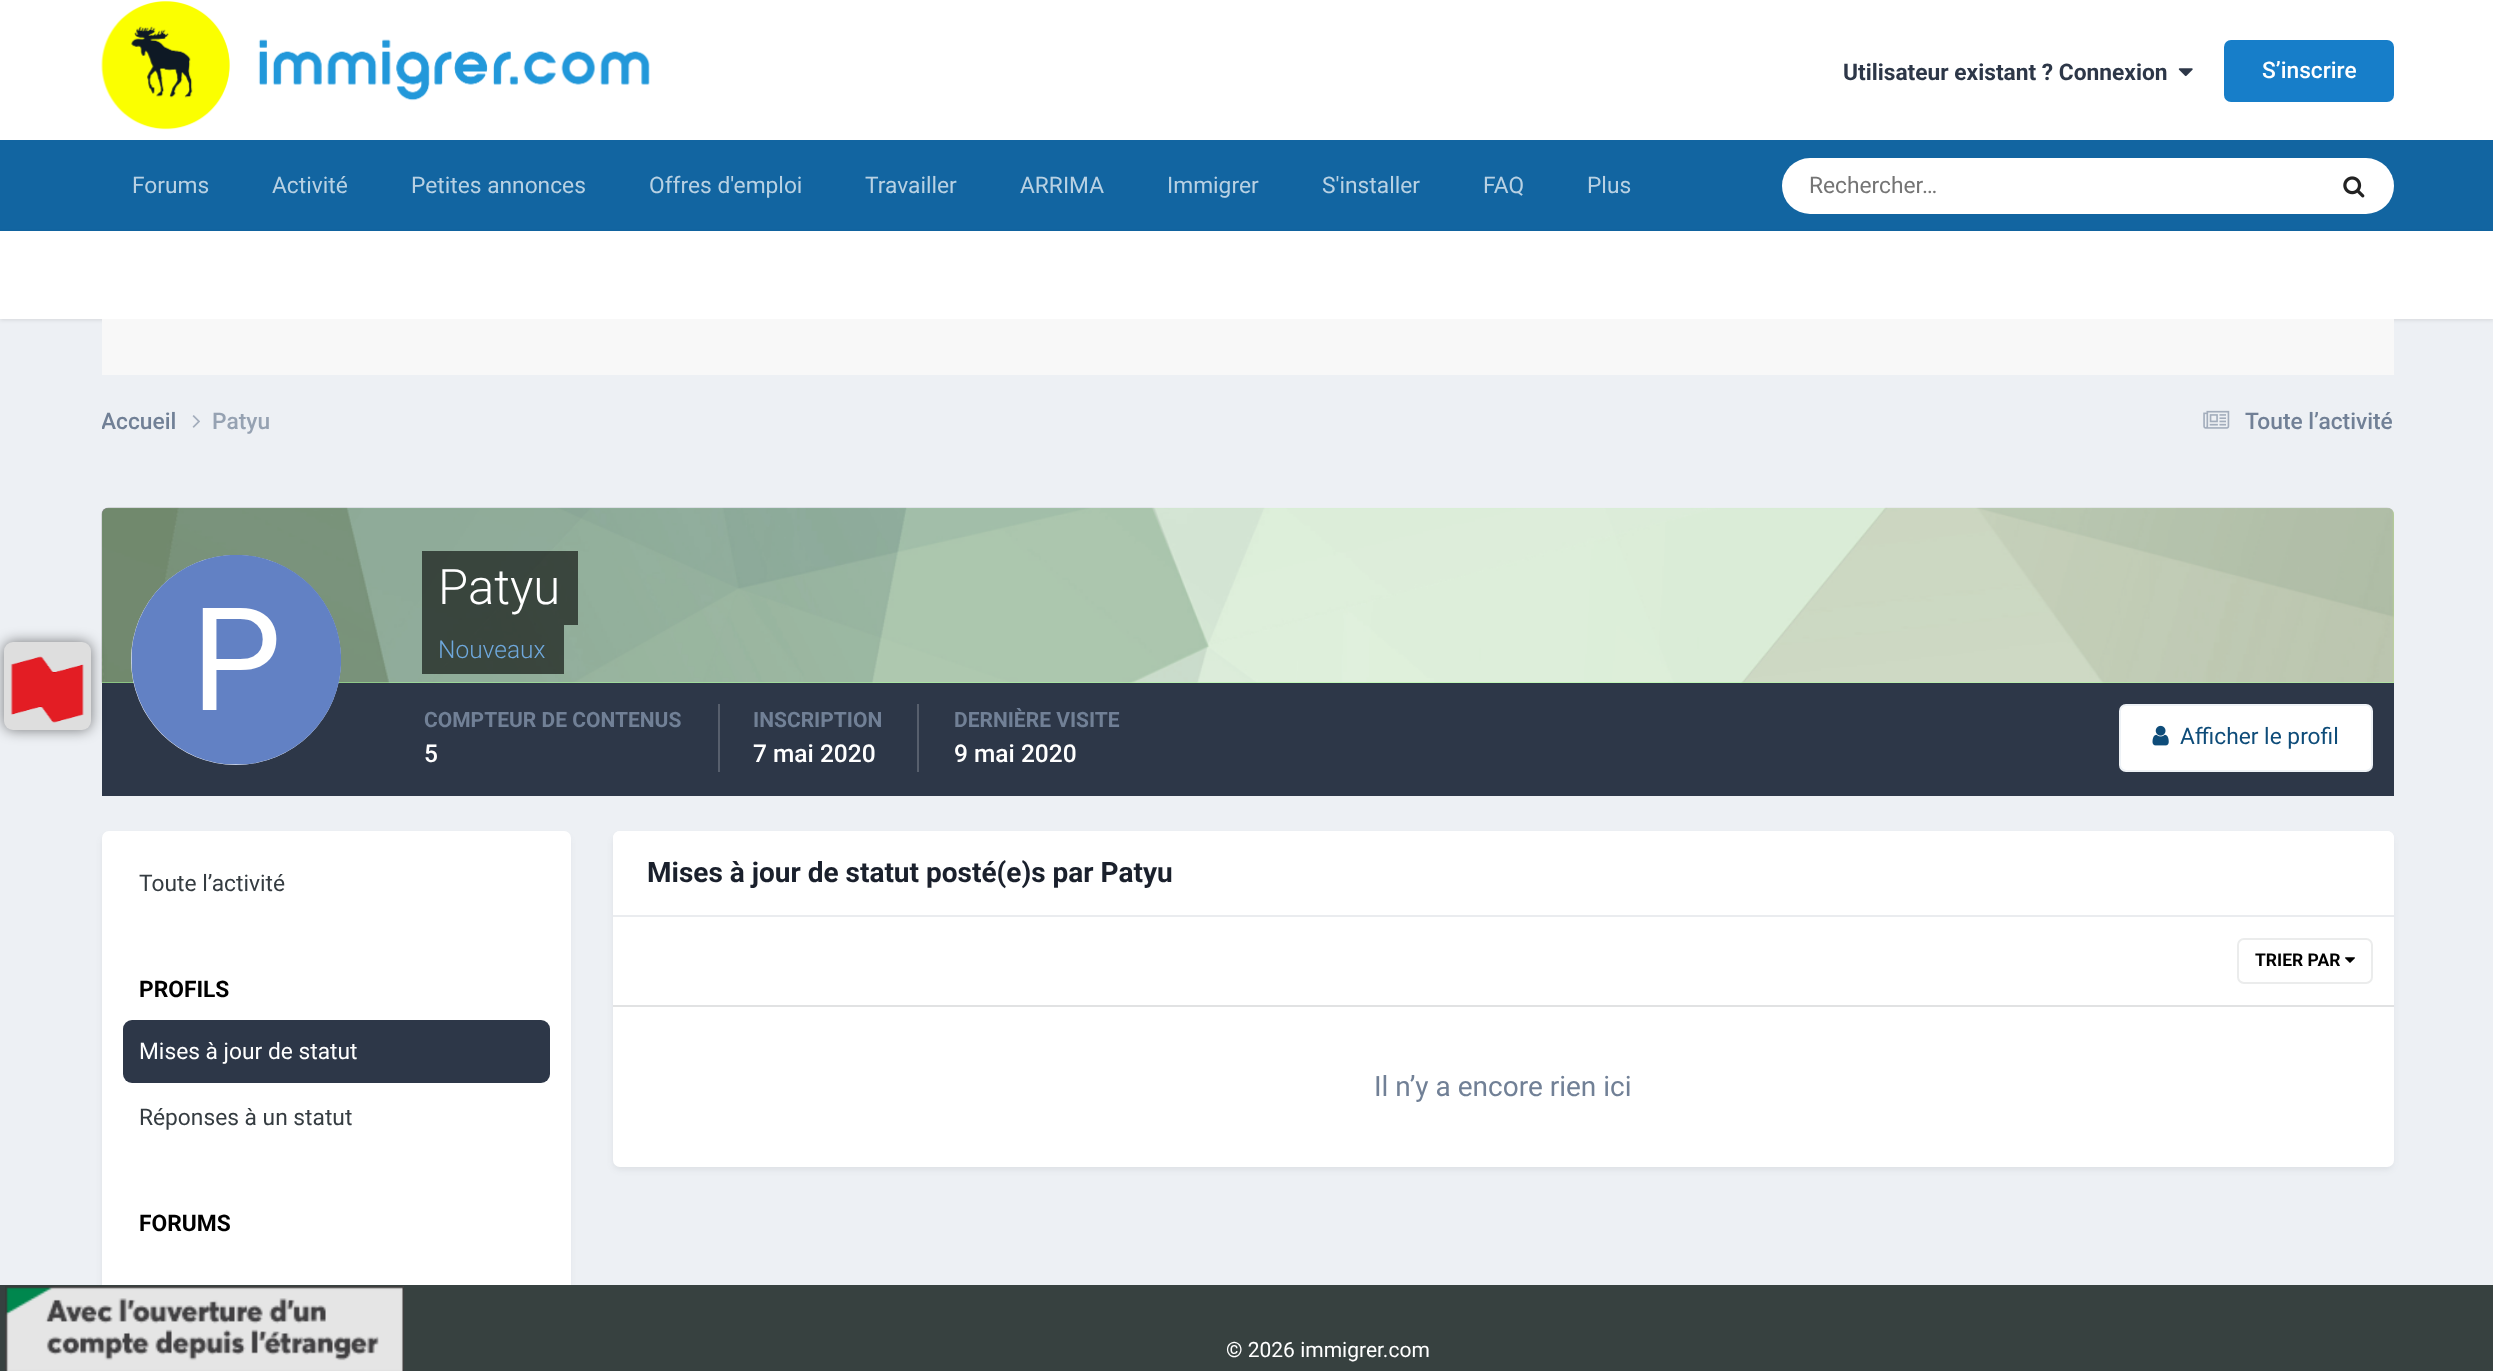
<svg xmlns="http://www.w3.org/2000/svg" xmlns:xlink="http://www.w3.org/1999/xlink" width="2493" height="1371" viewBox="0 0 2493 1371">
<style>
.cls-1{font:bold 22.75px Roboto;fill:#2d3748}
.cls-2{font:500 22.75px Roboto;fill:#ffffff}
.cls-3{font:22.75px Roboto;fill:#b8d1e3}
.cls-4{font:22.75px Roboto;fill:#757575}
.cls-5{font:500 22.75px Roboto;fill:#718096}
.cls-6{font:500 22.75px Roboto;fill:#96a2b2}
.cls-7{font:300 49px Roboto;fill:#ffffff}
.cls-8{font:300 24.5px Roboto;fill:#6fa8dc}
.cls-9{font:bold 21px Roboto;fill:#718096}
.cls-10{font:500 24.5px Roboto;fill:#ffffff}
.cls-11{font:22.75px Roboto;fill:#0e4c79}
.cls-12{font:22.75px Roboto;fill:#353c41}
.cls-13{font:bold 22.75px Roboto;fill:#000000}
.cls-14{font:22.75px Roboto;fill:#ffffff}
.cls-15{font:bold 28px Roboto;fill:#1a202c}
.cls-16{font:bold 17.5px Roboto;fill:#000000}
.cls-17{font:28px Roboto;fill:#718096}
.cls-18{font:21px Roboto;fill:#ffffff}
</style>
<defs>
<clipPath id="clip1"><rect x="102" y="404" width="110" height="34"/></clipPath>
</defs>
<rect width="100%" height="100%" fill="#edf0f4"/>
<rect fill="#ffffff" x="0" y="0" width="2493" height="140"/>
<image xlink:href="image0.png" x="101" y="1" width="549" height="129"/>
<image xlink:href="image1.png" x="2178" y="68" width="15" height="9"/>
<rect fill="#177ec9" x="2224" y="40" width="170" height="62" rx="7"/>
<rect fill="#1265a1" x="0" y="140" width="2493" height="91"/>
<rect fill="#ffffff" x="1782" y="158" width="612" height="56" rx="28"/>
<image xlink:href="image2.png" x="2343" y="176" width="22" height="22"/>
<rect fill="#000000" fill-opacity="0.1" filter="blur(2px)" x="0" y="233" width="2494" height="87"/>
<rect fill="#ffffff" x="0" y="231" width="2493" height="88"/>
<path fill="#a8ff99" d="M109 508H2387C2391 508 2394 511 2394 515V683H102V515C102 511 105 508 109 508Z"/>
<image xlink:href="image6.png" x="101" y="507" width="2293" height="176"/>
<rect fill="#2d3748" x="102" y="683" width="2292" height="113"/>
<rect fill="#000000" fill-opacity="0.5" filter="blur(7px)" x="4" y="642" width="87" height="88" rx="9"/>
<rect fill="#dedede" x="4" y="642" width="87" height="88" rx="9"/>
<image xlink:href="image3.png" x="10" y="656" width="74" height="67"/>
<rect fill="#f8f8f8" x="102" y="319" width="2292" height="56"/>
<image xlink:href="image4.png" x="192" y="415" width="8" height="13"/>
<image xlink:href="image5.png" x="2203" y="410" width="27" height="19"/>
<circle fill="#ffffff" cx="236" cy="660" r="105"/>
<image xlink:href="image7.png" x="131" y="555" width="210" height="210"/>
<rect fill="#000000" fill-opacity="0.6" x="422" y="551" width="156" height="74"/>
<rect fill="#000000" fill-opacity="0.6" x="422" y="625" width="142" height="49"/>
<rect fill="#575f6d" x="718" y="704" width="2" height="68"/>
<rect fill="#575f6d" x="917" y="704" width="2" height="68"/>
<rect fill="#ffffff" x="2119" y="704" width="254" height="68" rx="7"/>
<rect fill="none" stroke="#0e4c79" stroke-opacity="0.07" stroke-width="2" x="2120" y="705" width="252" height="66" rx="6"/>
<image xlink:href="image8.png" x="2152" y="725" width="17" height="21"/>
<rect fill="#2d3748" fill-opacity="0.1" filter="blur(3.5px)" x="103" y="837" width="466" height="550" rx="5"/>
<rect fill="#ffffff" x="102" y="831" width="469" height="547" rx="7"/>
<rect fill="#2d3748" x="123" y="1020" width="427" height="63" rx="9"/>
<rect fill="#2d3748" fill-opacity="0.1" filter="blur(3.5px)" x="614" y="837" width="1778" height="332" rx="5"/>
<rect fill="#ffffff" x="613" y="831" width="1781" height="336" rx="7"/>
<path fill="#ffffff" d="M620 831H2387C2391 831 2394 834 2394 838V917H613V838C613 834 616 831 620 831Z"/>
<rect fill="#eaecef" x="613" y="915" width="1781" height="2"/>
<rect fill="#e1e2e3" x="613" y="1005" width="1781" height="2"/>
<image xlink:href="image9.png" x="2345" y="957" width="10" height="6"/>
<rect fill="none" stroke="#ebecec" stroke-width="2" x="2238" y="939" width="134" height="44" rx="6"/>
<rect fill="#374140" x="0" y="1285" width="2493" height="86"/>
<image xlink:href="image10.png" x="5" y="1286" width="399" height="85"/>
<text class="cls-1" x="1843" y="80">Utilisateur existant ? Connexion</text>
<text class="cls-2" x="2262" y="78">S’inscrire</text>
<text class="cls-3" x="132" y="193">Forums</text>
<text class="cls-3" x="272" y="193">Activité</text>
<text class="cls-3" x="411" y="193">Petites annonces</text>
<text class="cls-3" x="649" y="193">Offres d'emploi</text>
<text class="cls-3" x="865" y="193">Travailler</text>
<text class="cls-3" x="1020" y="193">ARRIMA</text>
<text class="cls-3" x="1167" y="193">Immigrer</text>
<text class="cls-3" x="1322" y="193">S'installer</text>
<text class="cls-3" x="1483" y="193">FAQ</text>
<text class="cls-3" x="1587" y="193">Plus</text>
<text class="cls-4" x="1809" y="193">Rechercher…</text>
<g clip-path="url(#clip1)">
<text class="cls-5" x="101" y="429">Accueil</text>
</g>
<text class="cls-6" x="212" y="429">Patyu</text>
<text class="cls-5" x="2245" y="429">Toute l’activité</text>
<text class="cls-7" x="438" y="604">Patyu</text>
<text class="cls-8" x="438" y="658">Nouveaux</text>
<text class="cls-9" x="424" y="727">COMPTEUR DE CONTENUS</text>
<text class="cls-10" x="424" y="762">5</text>
<text class="cls-9" x="753" y="727">INSCRIPTION</text>
<text class="cls-10" x="753" y="762">7 mai 2020</text>
<text class="cls-9" x="954" y="727">DERNIÈRE VISITE</text>
<text class="cls-10" x="954" y="762">9 mai 2020</text>
<text class="cls-11" x="2180" y="744">Afficher le profil</text>
<text class="cls-12" x="139" y="891">Toute l’activité</text>
<text class="cls-13" x="139" y="997">PROFILS</text>
<text class="cls-14" x="139" y="1059">Mises à jour de statut</text>
<text class="cls-12" x="139" y="1125">Réponses à un statut</text>
<text class="cls-13" x="139" y="1231">FORUMS</text>
<text class="cls-15" x="647" y="882">Mises à jour de statut posté(e)s par Patyu</text>
<text class="cls-16" x="2255" y="966">TRIER PAR</text>
<text class="cls-17" x="1374" y="1096">Il n’y a encore rien ici</text>
<text class="cls-18" x="1226" y="1357">© 2026 immigrer.com</text>
</svg>
